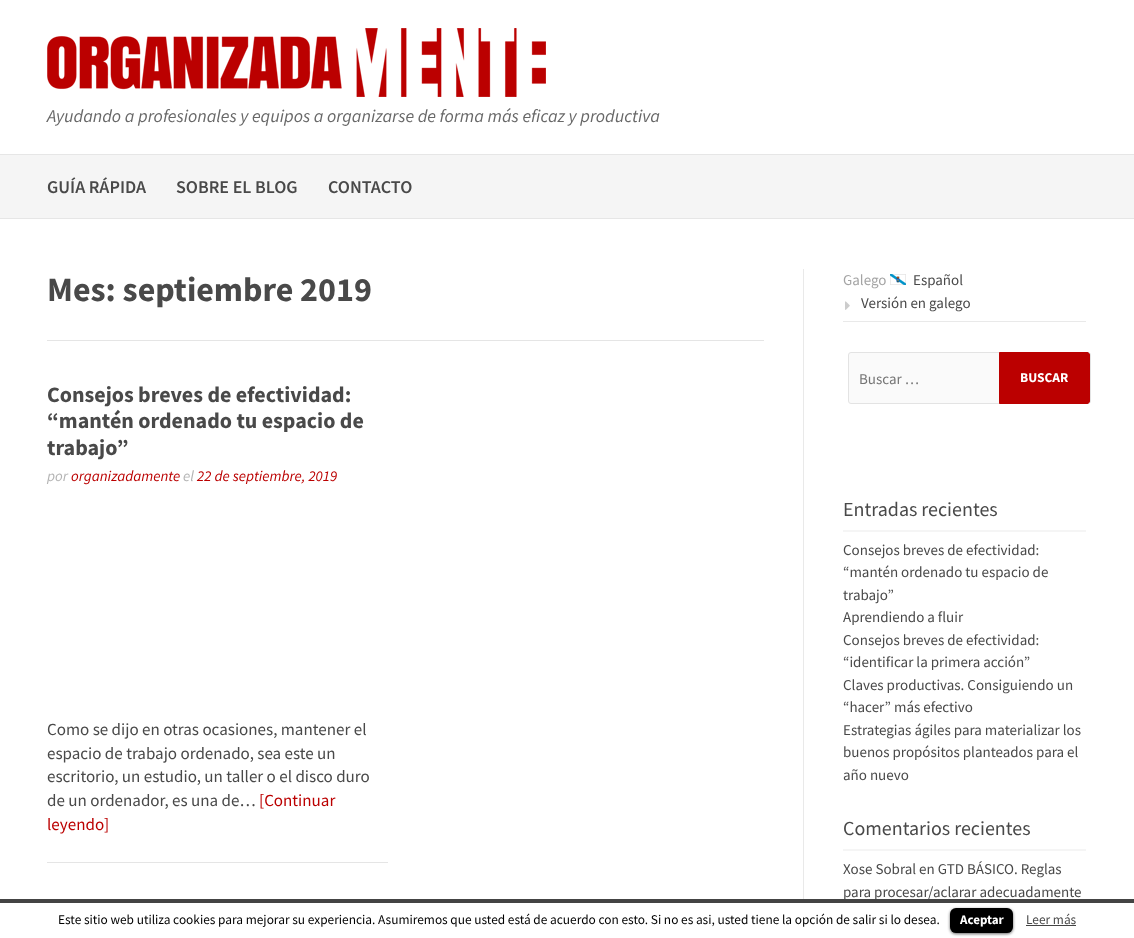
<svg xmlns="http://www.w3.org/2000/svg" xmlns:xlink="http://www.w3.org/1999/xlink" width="1134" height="938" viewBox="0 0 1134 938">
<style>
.cls-1{font:italic 18px Source Sans Pro;fill:#686868}
.cls-2{font:600 18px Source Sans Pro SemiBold;fill:#494949}
.cls-3{font:bold 34px Source Sans Pro;fill:#494949}
.cls-4{font:bold 22px Source Sans Pro;fill:#494949}
.cls-5{font:italic 15px Source Sans Pro;fill:#b4b4b4}
.cls-6{font:italic 15px Source Sans Pro;fill:#bb0000}
.cls-7{font:17px Source Sans Pro;fill:#494949}
.cls-8{font:17px Source Sans Pro;fill:#bb0000}
.cls-9{font:15px Source Sans Pro;fill:#a4a4a4}
.cls-10{font:15px Source Sans Pro;fill:#494949}
.cls-11{font:15px Source Sans Pro;fill:#757575}
.cls-12{font:bold 13.5px Source Sans Pro;fill:#ffffff}
.cls-13{font:20px Source Sans Pro;fill:#494949}
.cls-14{font:13.33px Source Sans Pro;fill:#000000}
.cls-15{font:bold 13px Source Sans Pro;fill:#ffffff}
.cls-16{font:13.33px Source Sans Pro;fill:#494949}
</style>
<rect width="100%" height="100%" fill="#ffffff"/>
<image xlink:href="image0.png" x="47" y="28" width="499" height="69"/>
<rect fill="#f5f5f5" x="0" y="155" width="1134" height="63"/>
<rect fill="#e6e6e6" x="0" y="154" width="1134" height="1"/>
<rect fill="#e6e6e6" x="0" y="218" width="1134" height="1"/>
<rect fill="#e5e5e5" x="47" y="340" width="717" height="1"/>
<rect fill="#e5e5e5" x="47" y="862" width="341" height="1"/>
<rect fill="#e9e9e9" x="803" y="269" width="1" height="630"/>
<image xlink:href="image1.png" x="890" y="274" width="16" height="11"/>
<rect fill="#e9e9e9" x="843" y="321" width="243" height="1"/>
<image xlink:href="image2.png" x="845" y="301" width="5" height="9"/>
<rect fill="#fafafa" stroke="#e3e3e3" x="848.5" y="352.5" width="242" height="51" rx="2.5"/>
<path fill="#bb0000" stroke="#bb0000" d="M999.5 352.5H1087C1088.5 352.5 1089.5 353.5 1089.5 355V401C1089.5 402.5 1088.5 403.5 1087 403.5H999.5Z"/>
<rect fill="#f5f5f5" x="843" y="530" width="243" height="2"/>
<rect fill="#f5f5f5" x="843" y="849" width="243" height="2"/>
<rect fill="#000000" fill-opacity="0.6" filter="blur(1.5px)" x="950" y="909" width="63" height="25" rx="6"/>
<rect fill="#000000" x="950" y="908" width="63" height="25" rx="6"/>
<rect fill="#000000" fill-opacity="0.25" x="953" y="932" width="57" height="1"/>
<rect fill="#444444" x="1026" y="925" width="50" height="1"/>
<text class="cls-1" x="47" y="122">Ayudando a profesionales y equipos a organizarse de forma más eficaz y productiva</text>
<text class="cls-2" x="47" y="193">GUÍA RÁPIDA</text>
<text class="cls-2" x="176" y="193">SOBRE EL BLOG</text>
<text class="cls-2" x="328" y="193">CONTACTO</text>
<text class="cls-3" x="47" y="301">Mes: septiembre 2019</text>
<text class="cls-4"><tspan x="47" y="402">Consejos breves de efectividad:</tspan><tspan x="47" y="428">“mantén ordenado tu espacio de</tspan><tspan x="47" y="455">trabajo”</tspan></text>
<text class="cls-5" x="47" y="481">por</text>
<text class="cls-6" x="71" y="481">organizadamente</text>
<text class="cls-5" x="183" y="481">el</text>
<text class="cls-6" x="197" y="481">22 de septiembre, 2019</text>
<text class="cls-7"><tspan x="47" y="735">Como se dijo en otras ocasiones, mantener el</tspan><tspan x="47" y="759">espacio de trabajo ordenado, sea este un</tspan><tspan x="47" y="782">escritorio, un estudio, un taller o el disco duro</tspan><tspan x="47" y="806">de un ordenador, es una de…</tspan></text>
<text class="cls-8" x="259" y="806">[Continuar</text>
<text class="cls-8" x="47" y="830">leyendo]</text>
<text class="cls-9" x="843" y="285">Galego</text>
<text class="cls-10" x="913" y="285">Español</text>
<text class="cls-10" x="861" y="308">Versión en galego</text>
<text class="cls-11" x="859" y="384">Buscar …</text>
<text class="cls-12" x="1020" y="382">BUSCAR</text>
<text class="cls-13" x="843" y="516">Entradas recientes</text>
<text class="cls-10"><tspan x="843" y="555">Consejos breves de efectividad:</tspan><tspan x="843" y="577">“mantén ordenado tu espacio de</tspan><tspan x="843" y="600">trabajo”</tspan><tspan x="843" y="622">Aprendiendo a fluir</tspan><tspan x="843" y="645">Consejos breves de efectividad:</tspan><tspan x="843" y="667">“identificar la primera acción”</tspan><tspan x="843" y="690">Claves productivas. Consiguiendo un</tspan><tspan x="843" y="712">“hacer” más efectivo</tspan><tspan x="843" y="735">Estrategias ágiles para materializar los</tspan><tspan x="843" y="757">buenos propósitos planteados para el</tspan><tspan x="843" y="780">año nuevo</tspan></text>
<text class="cls-13" x="843" y="835">Comentarios recientes</text>
<text class="cls-10"><tspan x="843" y="874">Xose Sobral en GTD BÁSICO. Reglas</tspan><tspan x="843" y="897">para procesar/aclarar adecuadamente</tspan></text>
<rect fill="#444444" x="0" y="899" width="1134" height="4"/>
<text class="cls-14" x="58" y="924">Este sitio web utiliza cookies para mejorar su experiencia. Asumiremos que usted está de acuerdo con esto. Si no es asi, usted tiene la opción de salir si lo desea.</text>
<text class="cls-15" x="960" y="924">Aceptar</text>
<text class="cls-16" x="1026" y="924">Leer más</text>
</svg>
